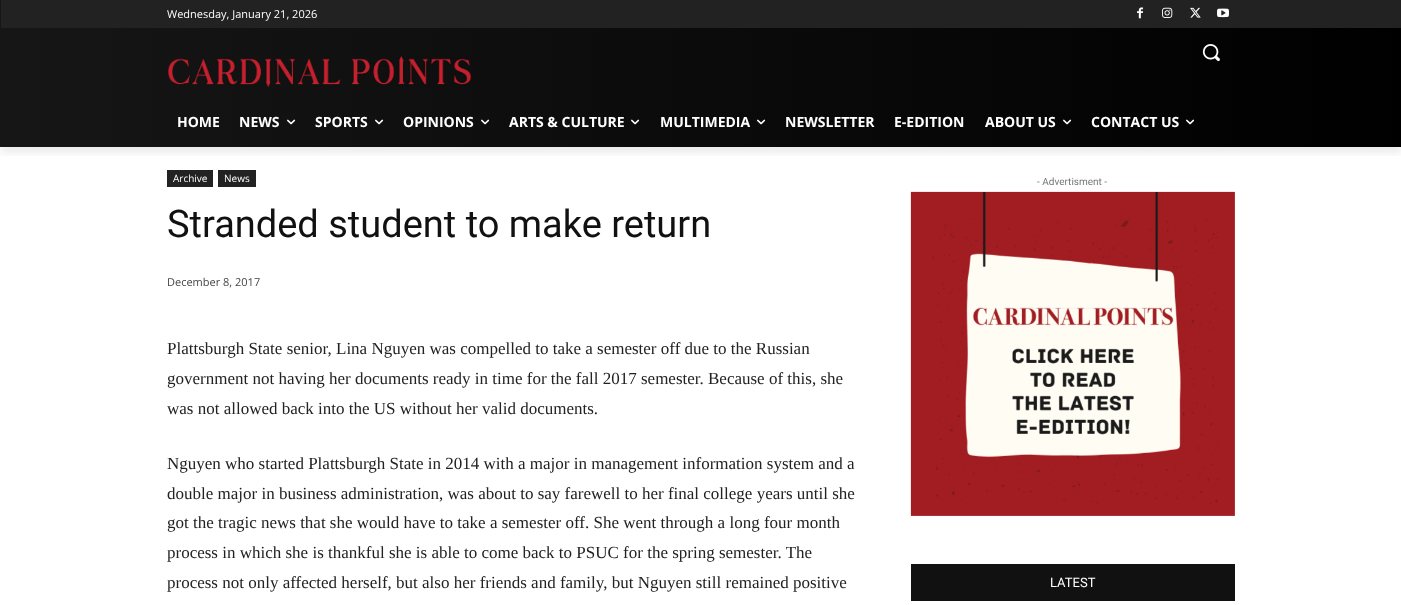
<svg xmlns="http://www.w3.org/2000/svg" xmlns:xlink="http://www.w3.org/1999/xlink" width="1401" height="605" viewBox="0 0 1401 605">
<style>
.cls-1{font:11px Open Sans;fill:#ffffff}
.cls-2{font:bold 14px Open Sans;fill:#ffffff}
.cls-3{font:10px Open Sans;fill:#ffffff}
.cls-4{font:38px Roboto;fill:#111111}
.cls-5{font:11px Open Sans;fill:#444444}
.cls-6{font:17px Liberation Serif;fill:#222222}
.cls-7{font:10px Roboto;fill:#767676}
.cls-8{font:13px Roboto;fill:#ffffff}
</style>
<defs>
<linearGradient id="g1" gradientUnits="userSpaceOnUse" x1="1401" y1="74" x2="0" y2="73"><stop offset="0" stop-color="#000000"/><stop offset="1" stop-color="#161616"/></linearGradient>
<clipPath id="clip1"><rect x="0" y="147" width="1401" height="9"/></clipPath>
</defs>
<rect width="100%" height="100%" fill="#ffffff"/>
<rect fill="url(#g1)" x="0" y="0" width="1401" height="147"/>
<rect fill="#222222" x="1" y="0" width="1400" height="28"/>
<image xlink:href="image0.png" x="1137" y="7" width="6" height="12"/>
<image xlink:href="image1.png" x="1162" y="7" width="11" height="11"/>
<image xlink:href="image2.png" x="1190" y="7" width="11" height="11"/>
<image xlink:href="image3.png" x="1217" y="8" width="12" height="10"/>
<image xlink:href="image5.png" x="167" y="56" width="305" height="32"/>
<g clip-path="url(#clip1)">
<rect fill="#000000" fill-opacity="0.08" filter="blur(4px)" x="1" y="6" width="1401" height="147"/>
</g>
<image xlink:href="image4.png" x="1202" y="44" width="18" height="18"/>
<image xlink:href="image6.png" x="287" y="119" width="9" height="6"/>
<image xlink:href="image7.png" x="375" y="119" width="9" height="6"/>
<image xlink:href="image8.png" x="481" y="119" width="9" height="6"/>
<image xlink:href="image9.png" x="631" y="119" width="9" height="6"/>
<image xlink:href="image10.png" x="757" y="119" width="9" height="6"/>
<image xlink:href="image11.png" x="1063" y="119" width="9" height="6"/>
<image xlink:href="image12.png" x="1186" y="119" width="9" height="6"/>
<rect fill="#222222" x="167" y="170" width="46" height="17"/>
<rect fill="#222222" x="218" y="170" width="38" height="17"/>
<image xlink:href="image13.png" x="910" y="191" width="325" height="325"/>
<rect fill="#111111" x="911" y="564" width="324" height="37"/>
<text class="cls-1" x="167" y="18">Wednesday, January 21, 2026</text>
<text class="cls-2" x="177" y="127">HOME</text>
<text class="cls-2" x="239" y="127">NEWS</text>
<text class="cls-2" x="315" y="127">SPORTS</text>
<text class="cls-2" x="403" y="127">OPINIONS</text>
<text class="cls-2" x="509" y="127">ARTS &amp; CULTURE</text>
<text class="cls-2" x="660" y="127">MULTIMEDIA</text>
<text class="cls-2" x="785" y="127">NEWSLETTER</text>
<text class="cls-2" x="894" y="127">E-EDITION</text>
<text class="cls-2" x="985" y="127">ABOUT US</text>
<text class="cls-2" x="1091" y="127">CONTACT US</text>
<text class="cls-3" x="173" y="182">Archive</text>
<text class="cls-3" x="224" y="182">News</text>
<text class="cls-4" x="167" y="237">Stranded student to make return</text>
<text class="cls-5" x="167" y="286">December 8, 2017</text>
<text class="cls-6"><tspan x="167" y="354">Plattsburgh State senior, Lina Nguyen was compelled to take a semester off due to the Russian</tspan><tspan x="167" y="384">government not having her documents ready in time for the fall 2017 semester. Because of this, she</tspan><tspan x="167" y="414">was not allowed back into the US without her valid documents.</tspan></text>
<text class="cls-6"><tspan x="167" y="469">Nguyen who started Plattsburgh State in 2014 with a major in management information system and a</tspan><tspan x="167" y="499">double major in business administration, was about to say farewell to her final college years until she</tspan><tspan x="167" y="528">got the tragic news that she would have to take a semester off. She went through a long four month</tspan><tspan x="167" y="558">process in which she is thankful she is able to come back to PSUC for the spring semester. The</tspan><tspan x="167" y="588">process not only affected herself, but also her friends and family, but Nguyen still remained positive</tspan></text>
<text class="cls-7" x="1037" y="185">- Advertisment -</text>
<text class="cls-8" x="1050" y="587">LATEST</text>
</svg>
